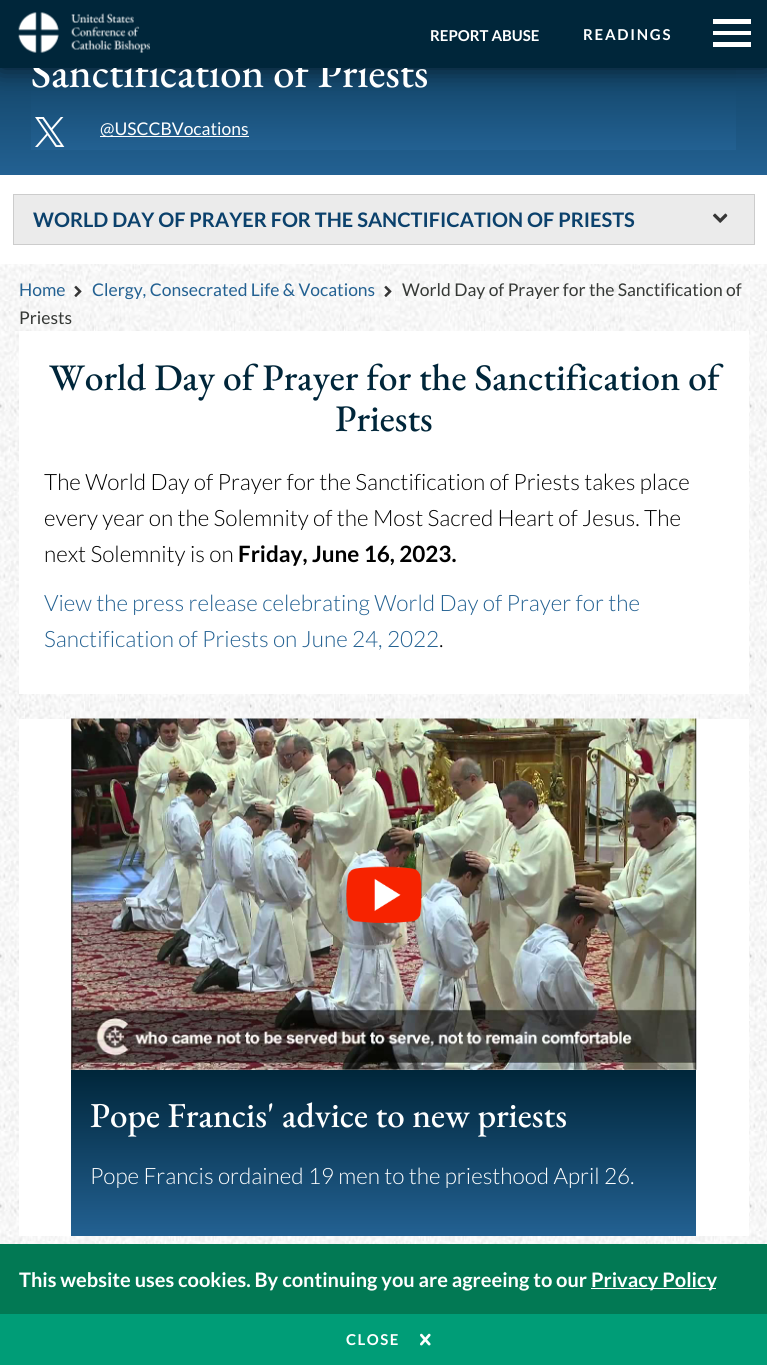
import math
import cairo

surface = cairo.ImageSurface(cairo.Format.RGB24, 767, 1365)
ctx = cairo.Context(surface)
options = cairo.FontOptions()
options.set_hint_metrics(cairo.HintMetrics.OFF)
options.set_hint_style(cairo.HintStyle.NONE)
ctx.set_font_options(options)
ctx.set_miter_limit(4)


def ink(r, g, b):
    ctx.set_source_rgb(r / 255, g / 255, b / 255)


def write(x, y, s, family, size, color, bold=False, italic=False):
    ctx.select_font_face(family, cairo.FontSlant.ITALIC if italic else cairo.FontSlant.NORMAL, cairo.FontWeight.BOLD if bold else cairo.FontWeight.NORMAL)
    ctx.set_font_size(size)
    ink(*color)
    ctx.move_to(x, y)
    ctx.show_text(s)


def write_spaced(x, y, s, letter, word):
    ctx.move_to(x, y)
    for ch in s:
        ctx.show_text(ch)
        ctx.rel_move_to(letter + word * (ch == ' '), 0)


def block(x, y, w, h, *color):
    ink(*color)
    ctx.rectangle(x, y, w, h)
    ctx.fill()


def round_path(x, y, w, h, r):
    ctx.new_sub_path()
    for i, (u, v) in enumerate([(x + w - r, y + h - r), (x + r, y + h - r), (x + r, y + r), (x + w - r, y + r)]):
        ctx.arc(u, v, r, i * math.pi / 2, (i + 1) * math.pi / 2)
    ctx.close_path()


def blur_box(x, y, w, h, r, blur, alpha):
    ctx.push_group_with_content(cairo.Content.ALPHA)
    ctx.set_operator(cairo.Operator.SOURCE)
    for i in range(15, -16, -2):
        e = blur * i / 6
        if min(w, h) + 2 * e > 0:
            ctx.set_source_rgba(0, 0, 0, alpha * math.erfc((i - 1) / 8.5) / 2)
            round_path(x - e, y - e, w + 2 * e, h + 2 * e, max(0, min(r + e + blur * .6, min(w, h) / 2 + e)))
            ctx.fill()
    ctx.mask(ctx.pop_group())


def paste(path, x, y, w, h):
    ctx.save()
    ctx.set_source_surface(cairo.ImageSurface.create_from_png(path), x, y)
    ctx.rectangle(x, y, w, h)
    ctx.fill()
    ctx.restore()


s1 = dict(family="EB Garamond Medium", size=42.5, color=(255, 255, 255))
s2 = dict(family="Lato", size=15, color=(255, 255, 255), bold=True)
s3 = dict(family="Lato", size=17.5, color=(255, 255, 255))
s4 = dict(family="Lato", size=20, color=(11, 65, 108), bold=True)
s5 = dict(family="Lato", size=17.5, color=(35, 97, 146))
s6 = dict(family="Lato", size=17.5, color=(54, 57, 54))
s7 = dict(family="EB Garamond Medium", size=37.5, color=(0, 38, 58))
s8 = dict(family="Lato Light", size=22.5, color=(0, 0, 0))
s9 = dict(family="Lato", size=22.5, color=(0, 0, 0), bold=True)
s10 = dict(family="Lato Light", size=22.5, color=(35, 97, 146))
s11 = dict(family="EB Garamond Medium", size=35, color=(255, 255, 255))
s12 = dict(family="Lato Light", size=22.5, color=(255, 255, 255))
s13 = dict(family="Lato", size=20, color=(255, 255, 255), bold=True)

ink(255, 255, 255)
ctx.paint()
paste("pic1.png", 0, 264, 767, 980)
gradient = cairo.LinearGradient(384, -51, 384, 175)
gradient.add_color_stop_rgba(0, 0, 0.149, 0.227, 1)
gradient.add_color_stop_rgba(1, 0.137, 0.38, 0.573, 1)
ctx.set_source(gradient)
ctx.rectangle(0, 68, 767, 107)
ctx.fill()
gradient = cairo.LinearGradient(384, -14, 384, 150)
gradient.add_color_stop_rgba(0, 0, 0.149, 0.227, 1)
gradient.add_color_stop_rgba(1, 0.137, 0.38, 0.573, 1)
ctx.set_source(gradient)
ctx.rectangle(31, 68, 705, 82)
ctx.fill()
ink(0, 0, 0)
blur_box(0, 0, 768, 68, 0, 12.5, 0.6)
write(31, 87, "Sanctification of Priests", **s1)
block(0, 0, 767, 68, 0, 38, 58)
paste("pic2.png", 18, 12, 132, 41)
write(430, 41, "REPORT ABUSE", **s2)
write_spaced(583, 40, "READINGS", 1.75, 0)
ctx.save()
ctx.rectangle(713, 13, 38, 41)
ctx.clip()
ctx.new_path()
ctx.move_to(712, 47)
ctx.line_to(754, 47)
ctx.line_to(754, 42)
ctx.line_to(712, 42)
ctx.close_path()
ctx.move_to(712, 35)
ctx.line_to(754, 35)
ctx.line_to(754, 31)
ctx.line_to(712, 31)
ctx.close_path()
ctx.move_to(712, 19)
ctx.line_to(712, 24)
ctx.line_to(754, 24)
ctx.line_to(754, 19)
ctx.close_path()
ctx.fill()
ctx.restore()
paste("pic3.png", 35, 117, 30, 30)
block(100, 136, 149, 1, 255, 255, 255)
write(100, 135, "@USCCBVocations", **s3)
ctx.rectangle(13.5, 194.5, 741, 50)
ink(204, 204, 204)
ctx.set_line_width(1)
ctx.stroke()
block(14, 195, 740, 49, 235, 235, 235)
write(33, 227, "WORLD DAY OF PRAYER FOR THE SANCTIFICATION OF PRIESTS", **s4)
paste("pic4.png", 712, 213, 16, 10)
write(19, 296, "Home", **s5)
paste("pic5.png", 384, 285, 8, 12)
write(402, 296, "World Day of Prayer for the Sanctification of", **s6)
write(19, 324, "Priests", **s6)
paste("pic6.png", 74, 285, 8, 12)
write(92, 296, "Clergy, Consecrated Life & Vocations", **s5)
paste("pic7.png", 0, 331, 767, 363)
block(19, 331, 730, 363, 255, 255, 255)
write(49, 390, "World Day of Prayer for the Sanctification of", **s7)
write(335, 431, "Priests", **s7)
write(44, 490, "The World Day of Prayer for the Sanctification of Priests takes place", **s8)
write(44, 526, "every year on the Solemnity of the Most Sacred Heart of Jesus. The", **s8)
write(44, 562, "next Solemnity is on", **s8)
write(238, 562, "Friday, June 16, 2023.", **s9)
write(44, 611, "View the press release celebrating World Day of Prayer for the", **s10)
write(44, 647, "Sanctification of Priests on June 24, 2022", **s10)
write(439, 647, ".", **s8)
block(19, 719, 730, 517, 255, 255, 255)
paste("pic8.png", 71, 718, 626, 352)
paste("pic9.png", 346, 866, 76, 57)
gradient = cairo.LinearGradient(384, 1070, 384, 1236)
gradient.add_color_stop_rgba(0, 0, 0.149, 0.227, 1)
gradient.add_color_stop_rgba(1, 0.137, 0.38, 0.573, 1)
ctx.set_source(gradient)
ctx.rectangle(71, 1070, 625, 166)
ctx.fill()
write(90, 1127, "Pope Francis' advice to new priests", **s11)
write(90, 1184, "Pope Francis ordained 19 men to the priesthood April 26.", **s12)
block(0, 1314, 767, 51, 0, 157, 119)
block(0, 1244, 767, 70, 2, 121, 84)
write(19, 1287, "This website uses cookies. By continuing you are agreeing to our", **s13)
block(591, 1288, 125, 1, 255, 255, 255)
write(591, 1287, "Privacy Policy", **s13)
ctx.set_font_size(15)
write_spaced(346, 1345, "CLOSE", 1.5, 0)
paste("pic10.png", 420, 1333, 11, 13)
surface.write_to_png("screenshot.png")
